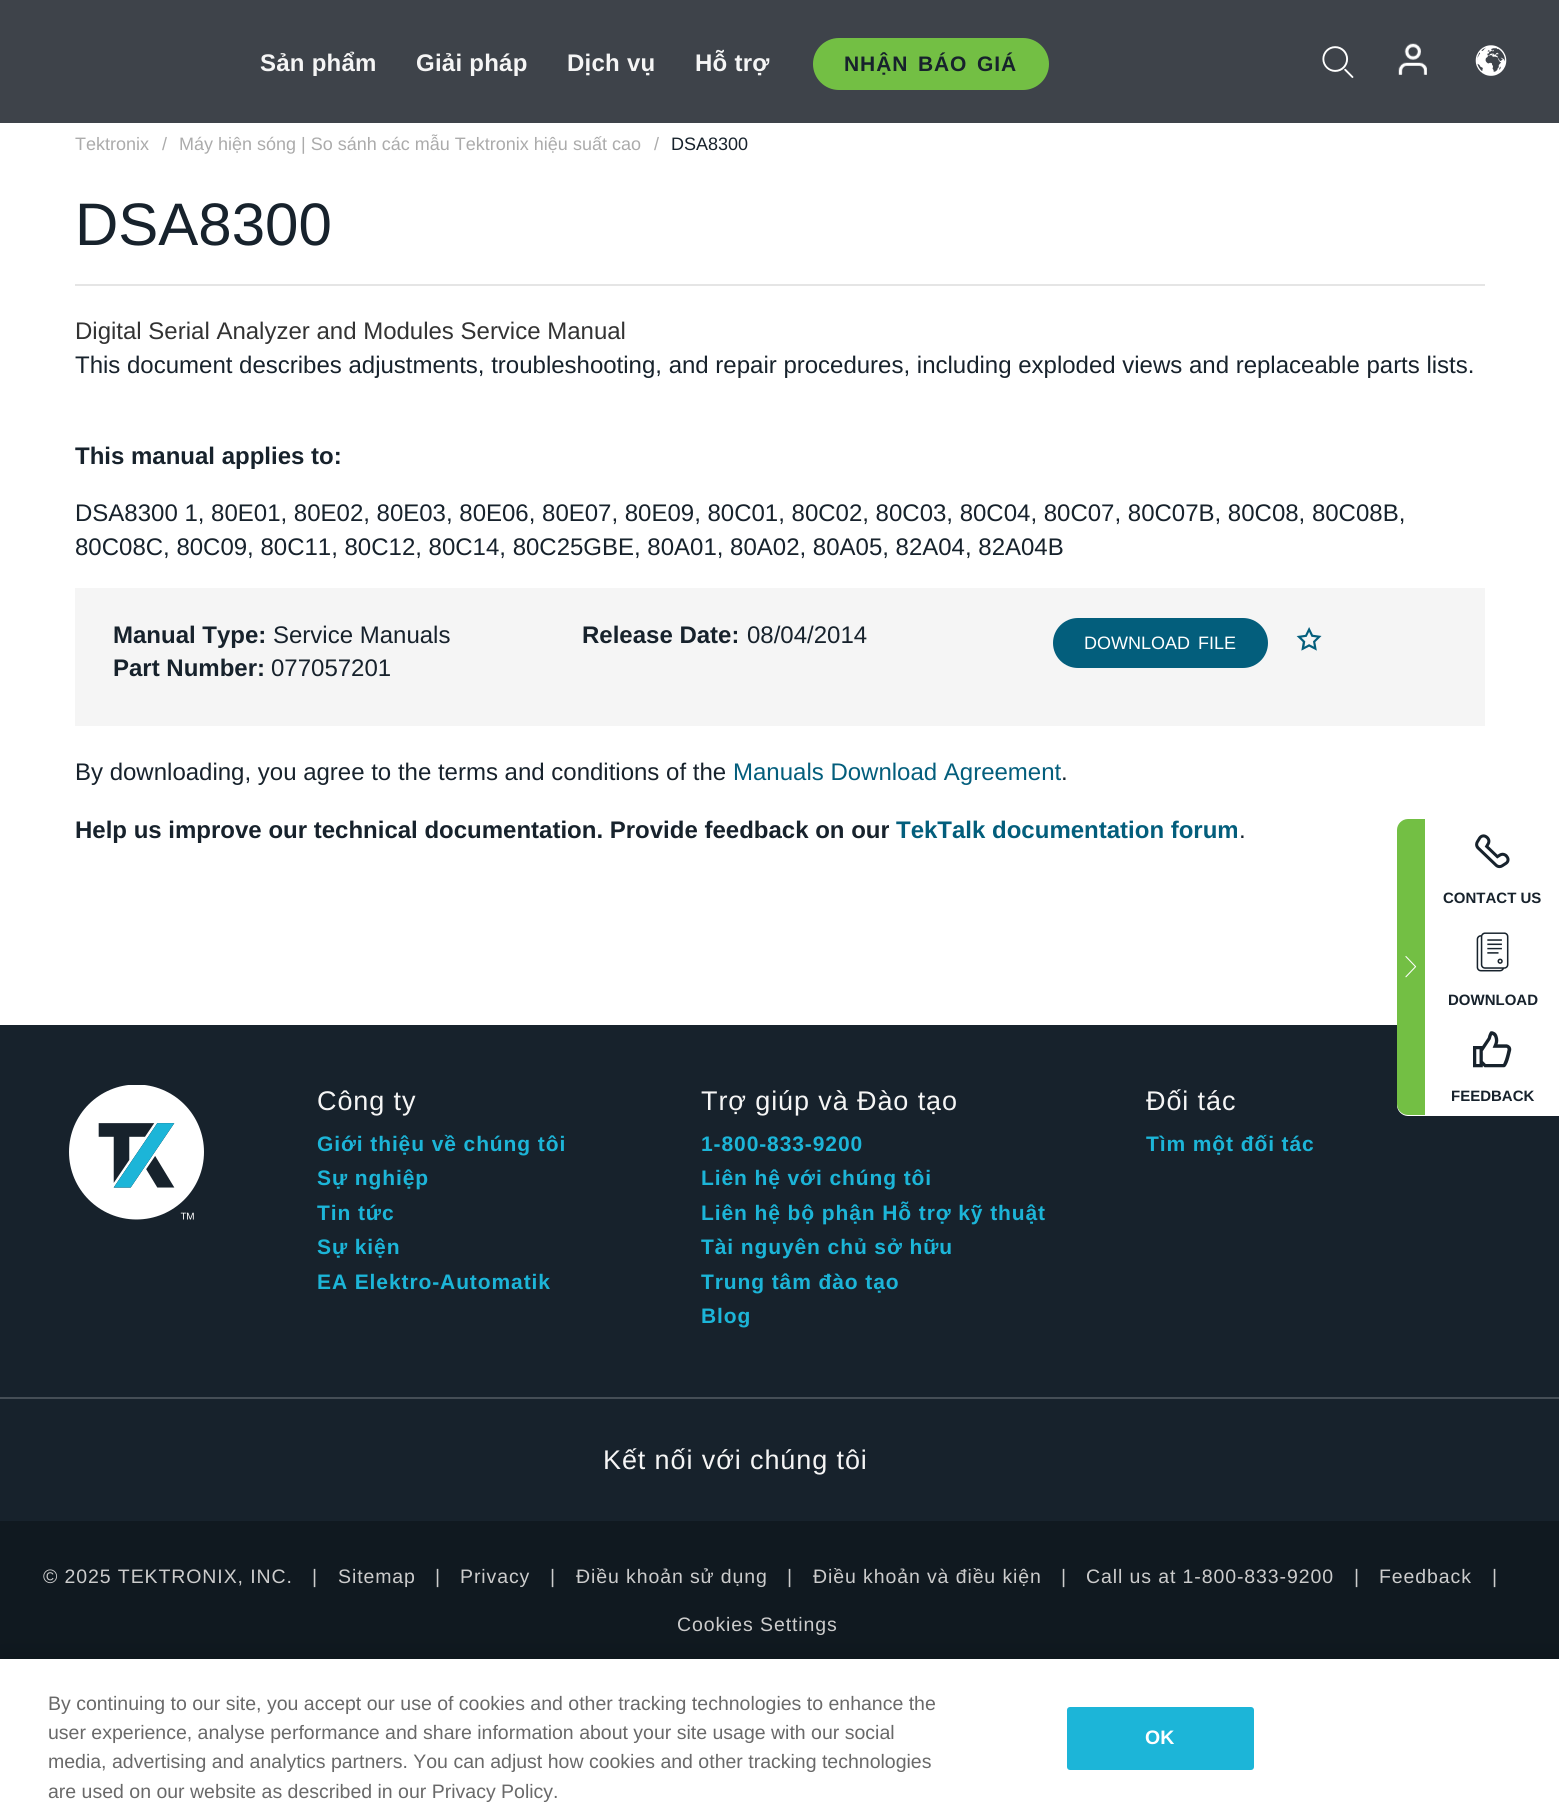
import math
import cairo

surface = cairo.ImageSurface(cairo.Format.RGB24, 1559, 1820)
ctx = cairo.Context(surface)
options = cairo.FontOptions()
options.set_hint_metrics(cairo.HintMetrics.OFF)
options.set_hint_style(cairo.HintStyle.NONE)
ctx.set_font_options(options)
ctx.set_miter_limit(4)


def ink(r, g, b):
    ctx.set_source_rgb(r / 255, g / 255, b / 255)


def write(x, y, s, family, size, color, bold=False, italic=False):
    ctx.select_font_face(family, cairo.FontSlant.ITALIC if italic else cairo.FontSlant.NORMAL, cairo.FontWeight.BOLD if bold else cairo.FontWeight.NORMAL)
    ctx.set_font_size(size)
    ink(*color)
    ctx.move_to(x, y)
    ctx.show_text(s)


def write_spaced(x, y, s, letter, word):
    ctx.move_to(x, y)
    for ch in s:
        ctx.show_text(ch)
        ctx.rel_move_to(letter + word * (ch == ' '), 0)


def block(x, y, w, h, *color):
    ink(*color)
    ctx.rectangle(x, y, w, h)
    ctx.fill()


def round_path(x, y, w, h, r):
    ctx.new_sub_path()
    for i, (u, v) in enumerate([(x + w - r, y + h - r), (x + r, y + h - r), (x + r, y + r), (x + w - r, y + r)]):
        ctx.arc(u, v, r, i * math.pi / 2, (i + 1) * math.pi / 2)
    ctx.close_path()


def blur_box(x, y, w, h, r, blur, alpha):
    ctx.push_group_with_content(cairo.Content.ALPHA)
    ctx.set_operator(cairo.Operator.SOURCE)
    for i in range(15, -16, -2):
        e = blur * i / 6
        if min(w, h) + 2 * e > 0:
            ctx.set_source_rgba(0, 0, 0, alpha * math.erfc((i - 1) / 8.5) / 2)
            round_path(x - e, y - e, w + 2 * e, h + 2 * e, max(0, min(r + e + blur * .6, min(w, h) / 2 + e)))
            ctx.fill()
    ctx.mask(ctx.pop_group())


def paste(path, x, y, w, h):
    ctx.save()
    ctx.set_source_surface(cairo.ImageSurface.create_from_png(path), x, y)
    ctx.rectangle(x, y, w, h)
    ctx.fill()
    ctx.restore()


s1 = dict(family="Liberation Sans", size=18, color=(171, 171, 171))
s2 = dict(family="Liberation Sans", size=18, color=(23, 34, 44))
s3 = dict(family="Liberation Sans", size=60, color=(23, 34, 44))
s4 = dict(family="Liberation Sans", size=24, color=(51, 51, 51))
s5 = dict(family="Liberation Sans", size=24, color=(23, 34, 44))
s6 = dict(family="Liberation Sans", size=24, color=(23, 34, 44), bold=True)
s7 = dict(family="Liberation Sans", size=24, color=(3, 94, 124))
s8 = dict(family="Liberation Sans", size=24, color=(3, 94, 124), bold=True)
s9 = dict(family="Liberation Sans", size=15, color=(23, 34, 44), bold=True)
s10 = dict(family="Liberation Sans", size=19.5, color=(105, 105, 105))
s11 = dict(family="Liberation Sans", size=19.5, color=(255, 255, 255), bold=True)

ink(255, 255, 255)
ctx.paint()
block(0, 0, 1559, 123, 62, 67, 74)
ctx.select_font_face("Liberation Sans", cairo.FontSlant.NORMAL, cairo.FontWeight.BOLD)
ctx.set_font_size(24)
ink(245, 245, 245)
write_spaced(260, 71, "Sản phẩm", 0.25, 0)
write_spaced(416, 71, "Giải pháp", 0.25, 0)
write_spaced(567, 71, "Dịch vụ", 0.25, 0)
write_spaced(695, 71, "Hỗ trợ", 0.25, 0)
ink(115, 191, 68)
round_path(813, 38, 236, 52, 26)
ctx.fill()
ctx.set_font_size(21)
ink(23, 34, 44)
write_spaced(844, 71, "NHẬN BÁO GIÁ", 0.9, 3)
paste("pic1.png", 1322, 46, 32, 32)
paste("pic2.png", 1398, 43, 29, 32)
paste("pic3.png", 1475, 45, 32, 31)
write(75, 150, "Tektronix", **s1)
write(162, 150, "/", **s1)
write(179, 150, "Máy hiện sóng | So sánh các mẫu Tektronix hiệu suất cao", **s1)
write(654, 150, "/", **s1)
write(671, 150, "DSA8300", **s2)
block(75, 284, 1410, 2, 229, 229, 229)
write(75, 245, "DSA8300", **s3)
write(75, 339, "Digital Serial Analyzer and Modules Service Manual", **s4)
write(75, 373, "This document describes adjustments, troubleshooting, and repair procedures, including exploded views and replaceable parts lists.", **s5)
write(75, 464, "This manual applies to:", **s6)
write(75, 521, "DSA8300 1, 80E01, 80E02, 80E03, 80E06, 80E07, 80E09, 80C01, 80C02, 80C03, 80C04, 80C07, 80C07B, 80C08, 80C08B,", **s5)
write(75, 555, "80C08C, 80C09, 80C11, 80C12, 80C14, 80C25GBE, 80A01, 80A02, 80A05, 82A04, 82A04B", **s5)
block(75, 588, 1410, 138, 245, 245, 245)
write(113, 643, "Manual Type:", **s6)
write(273, 643, "Service Manuals", **s5)
write(113, 676, "Part Number:", **s6)
write(271, 676, "077057201", **s5)
write(582, 643, "Release Date:", **s6)
write(747, 643, "08/04/2014", **s5)
ink(3, 94, 124)
round_path(1053, 618, 215, 50, 25)
ctx.fill()
ctx.set_font_size(18)
ink(255, 255, 255)
write_spaced(1084, 649, "DOWNLOAD FILE", 0, 3)
paste("pic4.png", 1296, 627, 26, 24)
write(75, 780, "By downloading, you agree to the terms and conditions of the", **s5)
write(733, 780, "Manuals Download Agreement", **s7)
write(1061, 780, ".", **s5)
write(75, 838, "Help us improve our technical documentation. Provide feedback on our", **s6)
write(896, 838, "TekTalk documentation forum", **s8)
write(1239, 838, ".", **s5)
block(0, 1025, 1559, 496, 23, 34, 44)
ink(255, 255, 255)
ctx.new_path()
ctx.move_to(1408, 819)
ctx.line_to(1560, 819)
ctx.line_to(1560, 1116)
ctx.line_to(1408, 1116)
ctx.curve_to(1402, 1116, 1397, 1111, 1397, 1105)
ctx.line_to(1397, 830)
ctx.curve_to(1397, 824, 1402, 819, 1408, 819)
ctx.close_path()
ctx.fill()
ink(115, 191, 68)
ctx.new_path()
ctx.move_to(1408, 819)
ctx.line_to(1425, 819)
ctx.line_to(1425, 1115)
ctx.line_to(1408, 1115)
ctx.curve_to(1402, 1115, 1397, 1110, 1397, 1104)
ctx.line_to(1397, 830)
ctx.curve_to(1397, 824, 1402, 819, 1408, 819)
ctx.close_path()
ctx.fill()
paste("pic5.png", 1405, 956, 12, 22)
paste("pic6.png", 1475, 834, 35, 35)
write(1443, 903, "CONTACT US", **s9)
paste("pic7.png", 1476, 932, 33, 40)
write(1448, 1005, "DOWNLOAD", **s9)
paste("pic8.png", 1473, 1031, 39, 37)
write(1451, 1101, "FEEDBACK", **s9)
paste("pic9.png", 69, 1085, 135, 135)
ctx.select_font_face("Liberation Sans")
ctx.set_font_size(27)
ink(245, 245, 245)
write_spaced(317, 1110, "Công ty", 0.9, 0)
ctx.select_font_face("Liberation Sans", cairo.FontSlant.NORMAL, cairo.FontWeight.BOLD)
ctx.set_font_size(21)
ink(28, 181, 216)
write_spaced(317, 1151, "Giới thiệu về chúng tôi", 0.9, 0)
write_spaced(317, 1185, "Sự nghiệp", 0.9, 0)
write_spaced(317, 1220, "Tin tức", 0.9, 0)
write_spaced(317, 1254, "Sự kiện", 0.9, 0)
write_spaced(317, 1289, "EA Elektro-Automatik", 0.9, 0)
ctx.select_font_face("Liberation Sans")
ctx.set_font_size(27)
ink(245, 245, 245)
write_spaced(701, 1110, "Trợ giúp và Đào tạo", 0.9, 0)
ctx.select_font_face("Liberation Sans", cairo.FontSlant.NORMAL, cairo.FontWeight.BOLD)
ctx.set_font_size(21)
ink(28, 181, 216)
write_spaced(701, 1151, "1-800-833-9200", 0.9, 0)
write_spaced(701, 1185, "Liên hệ với chúng tôi", 0.9, 0)
write_spaced(701, 1220, "Liên hệ bộ phận Hỗ trợ kỹ thuật", 0.9, 0)
write_spaced(701, 1254, "Tài nguyên chủ sở hữu", 0.9, 0)
write_spaced(701, 1289, "Trung tâm đào tạo", 0.9, 0)
write_spaced(701, 1323, "Blog", 0.9, 0)
ctx.select_font_face("Liberation Sans")
ctx.set_font_size(27)
ink(245, 245, 245)
write_spaced(1146, 1110, "Đối tác", 0.9, 0)
ctx.select_font_face("Liberation Sans", cairo.FontSlant.NORMAL, cairo.FontWeight.BOLD)
ctx.set_font_size(21)
ink(28, 181, 216)
write_spaced(1146, 1151, "Tìm một đối tác", 0.9, 0)
block(0, 1397, 1559, 2, 69, 78, 86)
ctx.select_font_face("Liberation Sans")
ctx.set_font_size(27)
ink(245, 245, 245)
write_spaced(603, 1469, "Kết nối với chúng tôi", 0.9, 0)
block(0, 1521, 1559, 138, 16, 25, 32)
ctx.set_font_size(19.5)
ink(204, 204, 204)
write_spaced(43, 1583, "© 2025 TEKTRONIX, INC.", 0.9, 0)
write_spaced(312, 1583, "|", 0.9, 0)
write_spaced(338, 1583, "Sitemap", 0.9, 0)
write_spaced(435, 1583, "|", 0.9, 0)
write_spaced(460, 1583, "Privacy", 0.9, 0)
write_spaced(550, 1583, "|", 0.9, 0)
write_spaced(576, 1583, "Điều khoản sử dụng", 0.9, 0)
write_spaced(787, 1583, "|", 0.9, 0)
write_spaced(813, 1583, "Điều khoản và điều kiện", 0.9, 0)
write_spaced(1061, 1583, "|", 0.9, 0)
write_spaced(1086, 1583, "Call us at 1-800-833-9200", 0.9, 0)
write_spaced(1354, 1583, "|", 0.9, 0)
write_spaced(1379, 1583, "Feedback", 0.9, 0)
write_spaced(1492, 1583, "|", 0.9, 0)
write_spaced(677, 1631, "Cookies Settings", 0.9, 0)
ink(0, 0, 0)
blur_box(0, 1659, 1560, 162, 0, 13.5, 0.2)
block(0, 1659, 1559, 161, 255, 255, 255)
write(48, 1710, "By continuing to our site, you accept our use of cookies and other tracking technologies to enhance the", **s10)
write(48, 1739, "user experience, analyse performance and share information about your site usage with our social", **s10)
write(48, 1768, "media, advertising and analytics partners. You can adjust how cookies and other tracking technologies", **s10)
write(48, 1798, "are used on our website as described in our Privacy Policy.", **s10)
ink(28, 181, 216)
round_path(1068, 1708, 185, 61, 2)
ctx.fill_preserve()
ctx.stroke()
write(1145, 1744, "OK", **s11)
surface.write_to_png("screenshot.png")
